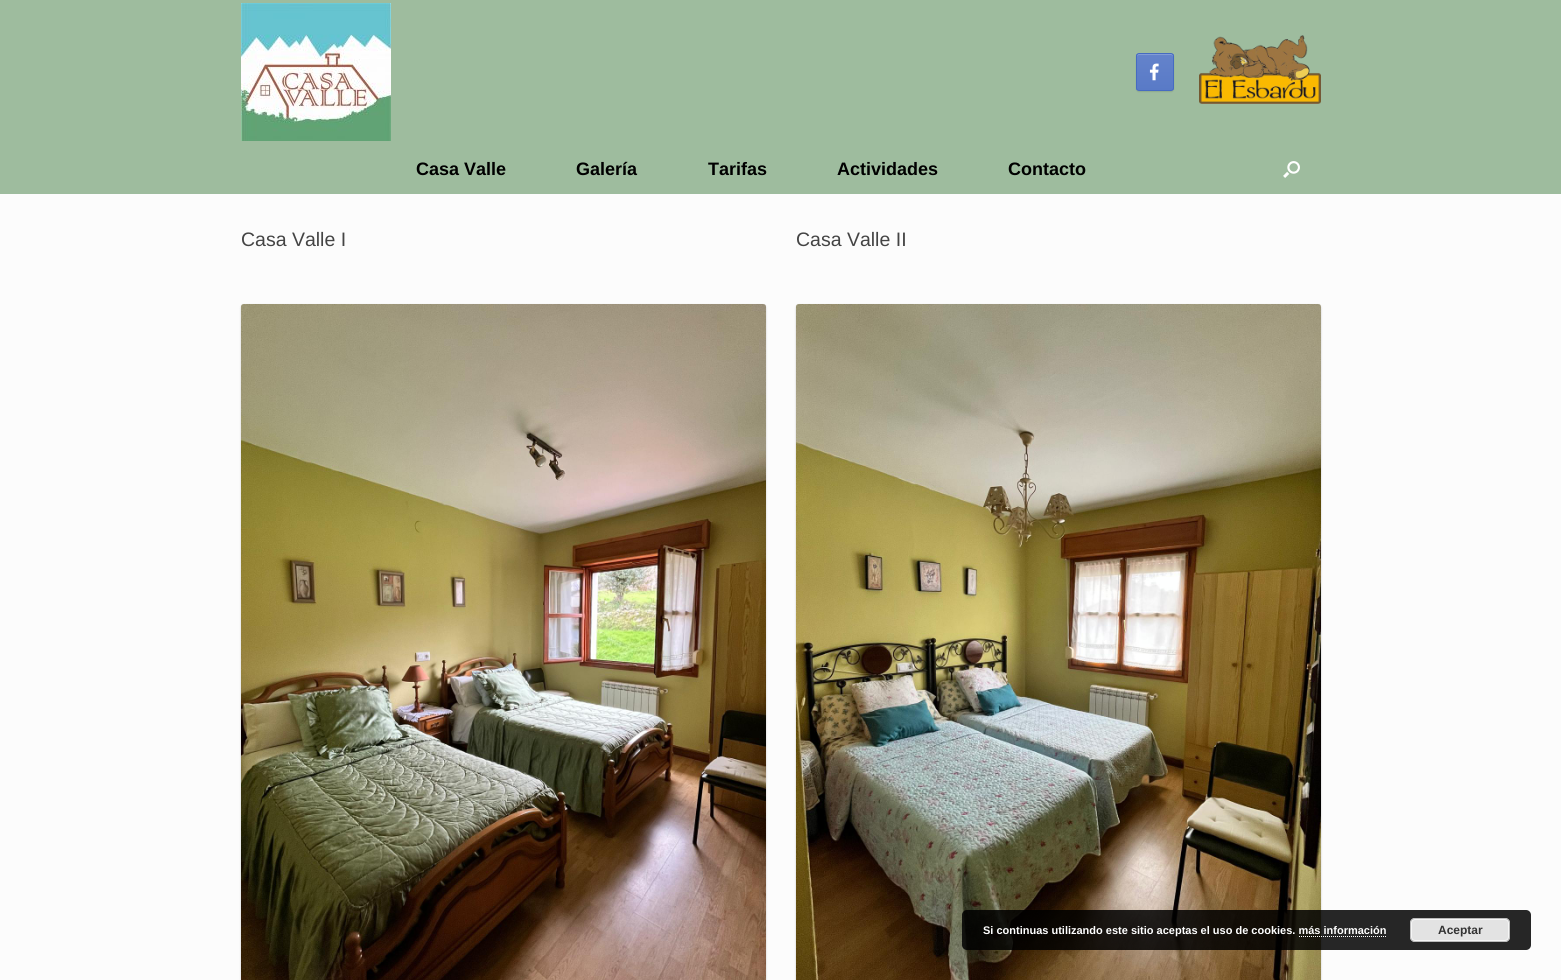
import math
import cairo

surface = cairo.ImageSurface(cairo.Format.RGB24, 1561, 980)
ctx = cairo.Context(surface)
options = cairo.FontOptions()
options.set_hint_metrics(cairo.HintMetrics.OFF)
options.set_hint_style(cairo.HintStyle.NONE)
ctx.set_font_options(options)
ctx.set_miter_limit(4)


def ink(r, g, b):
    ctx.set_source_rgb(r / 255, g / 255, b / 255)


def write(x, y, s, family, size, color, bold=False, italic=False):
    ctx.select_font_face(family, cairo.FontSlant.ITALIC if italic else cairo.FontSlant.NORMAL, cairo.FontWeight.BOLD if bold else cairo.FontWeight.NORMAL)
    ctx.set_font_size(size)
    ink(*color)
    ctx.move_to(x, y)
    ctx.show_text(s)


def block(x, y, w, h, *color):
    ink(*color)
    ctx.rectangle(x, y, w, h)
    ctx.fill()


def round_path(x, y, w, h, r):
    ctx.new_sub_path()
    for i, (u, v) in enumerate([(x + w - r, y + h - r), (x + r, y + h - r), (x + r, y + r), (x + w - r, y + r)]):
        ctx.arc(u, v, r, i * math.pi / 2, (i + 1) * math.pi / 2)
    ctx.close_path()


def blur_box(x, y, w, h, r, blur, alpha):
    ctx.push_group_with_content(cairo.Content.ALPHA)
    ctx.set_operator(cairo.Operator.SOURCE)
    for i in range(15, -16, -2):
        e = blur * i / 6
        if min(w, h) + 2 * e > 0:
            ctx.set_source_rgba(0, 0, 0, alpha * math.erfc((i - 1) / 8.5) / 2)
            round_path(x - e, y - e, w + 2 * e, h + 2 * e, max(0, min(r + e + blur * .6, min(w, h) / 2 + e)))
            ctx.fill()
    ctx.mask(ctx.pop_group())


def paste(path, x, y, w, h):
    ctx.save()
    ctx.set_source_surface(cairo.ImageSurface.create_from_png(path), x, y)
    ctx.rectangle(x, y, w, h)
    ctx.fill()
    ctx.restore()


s1 = dict(family="Liberation Sans", size=18, color=(0, 0, 0), bold=True)
s2 = dict(family="Liberation Sans", size=19.5, color=(68, 68, 68))
s3 = dict(family="Liberation Sans", size=11, color=(255, 255, 255), bold=True)
s4 = dict(family="Liberation Sans", size=12, color=(51, 51, 51), bold=True)

ink(158, 188, 158)
ctx.paint()
paste("pic1.png", 241, 3, 150, 138)
ink(0, 0, 0)
blur_box(1136, 54, 38, 38, 3, 0.5, 0.1)
ctx.save()
round_path(1136, 53, 38, 38, 3)
ctx.clip()
gradient = cairo.LinearGradient(1137, 90, 1137, 54)
gradient.add_color_stop_rgba(0, 0.349, 0.478, 0.78, 1)
gradient.add_color_stop_rgba(1, 0.392, 0.514, 0.796, 1)
ctx.set_source(gradient)
ctx.rectangle(1136, 54, 38, 36)
ctx.fill()
ctx.restore()
ink(131, 156, 213)
ctx.new_path()
ctx.move_to(1139, 55)
ctx.line_to(1171, 55)
ctx.curve_to(1172, 55, 1173, 56, 1173, 57)
ctx.curve_to(1173, 52.5, 1169.5, 54, 1165.5, 54)
ctx.line_to(1144.5, 54)
ctx.curve_to(1140.5, 54, 1137, 52.5, 1137, 57)
ctx.curve_to(1137, 56, 1138, 55, 1139, 55)
ctx.close_path()
ctx.fill()
round_path(1136.5, 53.5, 37, 37, 2.5)
ink(70, 107, 193)
ctx.set_line_width(1)
ctx.stroke()
paste("pic2.png", 1149, 63, 10, 18)
paste("pic3.png", 1199, 35, 122, 69)
write(416, 175, "Casa Valle", **s1)
write(576, 175, "Galería", **s1)
write(708, 175, "Tarifas", **s1)
write(837, 175, "Actividades", **s1)
write(1008, 175, "Contacto", **s1)
paste("pic4.png", 1283, 161, 17, 17)
block(0, 194, 1561, 786, 252, 252, 252)
write(241, 246, "Casa Valle I", **s2)
ink(0, 0, 0)
blur_box(241, 305, 525, 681, 3, 1, 0.18)
paste("pic5.png", 241, 304, 525, 676)
write(796, 246, "Casa Valle II", **s2)
ink(0, 0, 0)
blur_box(796, 305, 525, 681, 3, 1, 0.18)
paste("pic6.png", 796, 304, 525, 676)
ctx.set_source_rgba(0, 0, 0, 0.85)
round_path(962, 910, 569, 40, 5)
ctx.fill()
write(983, 934, "Si continuas utilizando este sitio aceptas el uso de cookies. más información", **s3)
ink(227, 227, 227)
round_path(1410, 918, 100, 24, 5)
ctx.fill()
round_path(1411.5, 919.5, 97, 21, 3.5)
ink(246, 246, 246)
ctx.stroke()
round_path(1410.5, 918.5, 99, 23, 4.5)
ink(187, 187, 187)
ctx.stroke()
write(1438, 934, "Aceptar", **s4)
ctx.new_path()
ctx.move_to(1299, 936.5)
ctx.line_to(1387, 936.5)
ink(255, 255, 255)
ctx.set_dash([1, 1])
ctx.stroke()
surface.write_to_png("screenshot.png")
